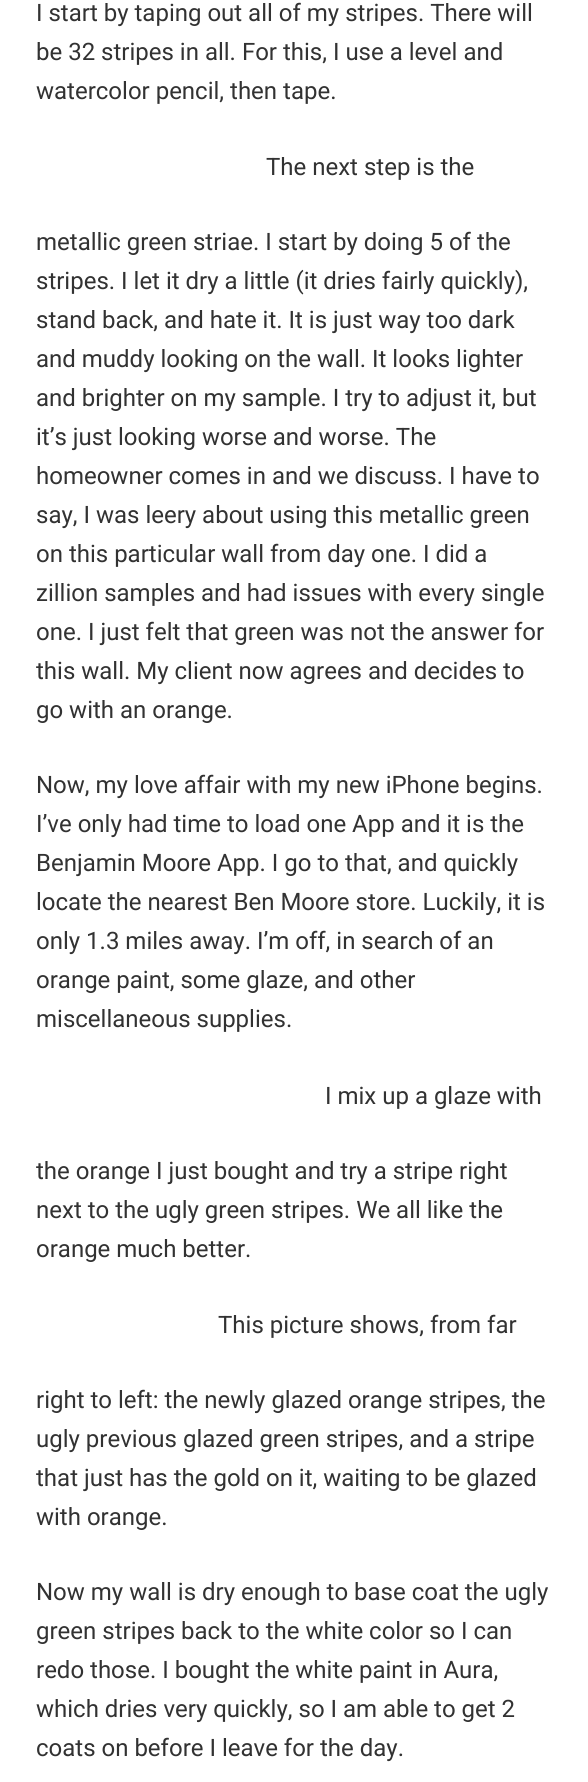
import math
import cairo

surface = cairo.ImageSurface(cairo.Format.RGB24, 588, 1782)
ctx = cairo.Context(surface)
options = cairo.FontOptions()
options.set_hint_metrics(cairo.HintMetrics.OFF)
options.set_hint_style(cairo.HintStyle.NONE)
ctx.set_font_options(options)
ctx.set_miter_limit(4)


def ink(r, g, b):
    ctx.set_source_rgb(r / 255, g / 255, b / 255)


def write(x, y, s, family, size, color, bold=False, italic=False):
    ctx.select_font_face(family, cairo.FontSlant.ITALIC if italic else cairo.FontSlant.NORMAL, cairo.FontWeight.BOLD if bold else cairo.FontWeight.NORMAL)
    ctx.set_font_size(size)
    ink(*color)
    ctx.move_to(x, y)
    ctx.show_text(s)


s1 = dict(family="Roboto", size=24, color=(50, 50, 50))

ink(255, 255, 255)
ctx.paint()
write(36, 21, "I start by taping out all of my stripes. There will", **s1)
write(36, 60, "be 32 stripes in all. For this, I use a level and", **s1)
write(36, 99, "watercolor pencil, then tape.", **s1)
write(266, 175, "The next step is the", **s1)
write(36, 250, "metallic green striae. I start by doing 5 of the", **s1)
write(36, 289, "stripes. I let it dry a little (it dries fairly quickly),", **s1)
write(36, 328, "stand back, and hate it. It is just way too dark", **s1)
write(36, 367, "and muddy looking on the wall. It looks lighter", **s1)
write(36, 406, "and brighter on my sample. I try to adjust it, but", **s1)
write(36, 445, "it’s just looking worse and worse. The", **s1)
write(36, 484, "homeowner comes in and we discuss. I have to", **s1)
write(36, 523, "say, I was leery about using this metallic green", **s1)
write(36, 562, "on this particular wall from day one. I did a", **s1)
write(36, 601, "zillion samples and had issues with every single", **s1)
write(36, 640, "one. I just felt that green was not the answer for", **s1)
write(36, 679, "this wall. My client now agrees and decides to", **s1)
write(36, 718, "go with an orange.", **s1)
write(36, 793, "Now, my love affair with my new iPhone begins.", **s1)
write(36, 832, "I’ve only had time to load one App and it is the", **s1)
write(36, 871, "Benjamin Moore App. I go to that, and quickly", **s1)
write(36, 910, "locate the nearest Ben Moore store. Luckily, it is", **s1)
write(36, 949, "only 1.3 miles away. I’m off, in search of an", **s1)
write(36, 988, "orange paint, some glaze, and other", **s1)
write(36, 1027, "miscellaneous supplies.", **s1)
write(325, 1104, "I mix up a glaze with", **s1)
write(36, 1179, "the orange I just bought and try a stripe right", **s1)
write(36, 1218, "next to the ugly green stripes. We all like the", **s1)
write(36, 1257, "orange much better.", **s1)
write(218, 1333, "This picture shows, from far", **s1)
write(36, 1408, "right to left: the newly glazed orange stripes, the", **s1)
write(36, 1447, "ugly previous glazed green stripes, and a stripe", **s1)
write(36, 1486, "that just has the gold on it, waiting to be glazed", **s1)
write(36, 1525, "with orange.", **s1)
write(36, 1600, "Now my wall is dry enough to base coat the ugly", **s1)
write(36, 1639, "green stripes back to the white color so I can", **s1)
write(36, 1678, "redo those. I bought the white paint in Aura,", **s1)
write(36, 1717, "which dries very quickly, so I am able to get 2", **s1)
write(36, 1756, "coats on before I leave for the day.", **s1)
surface.write_to_png("screenshot.png")
